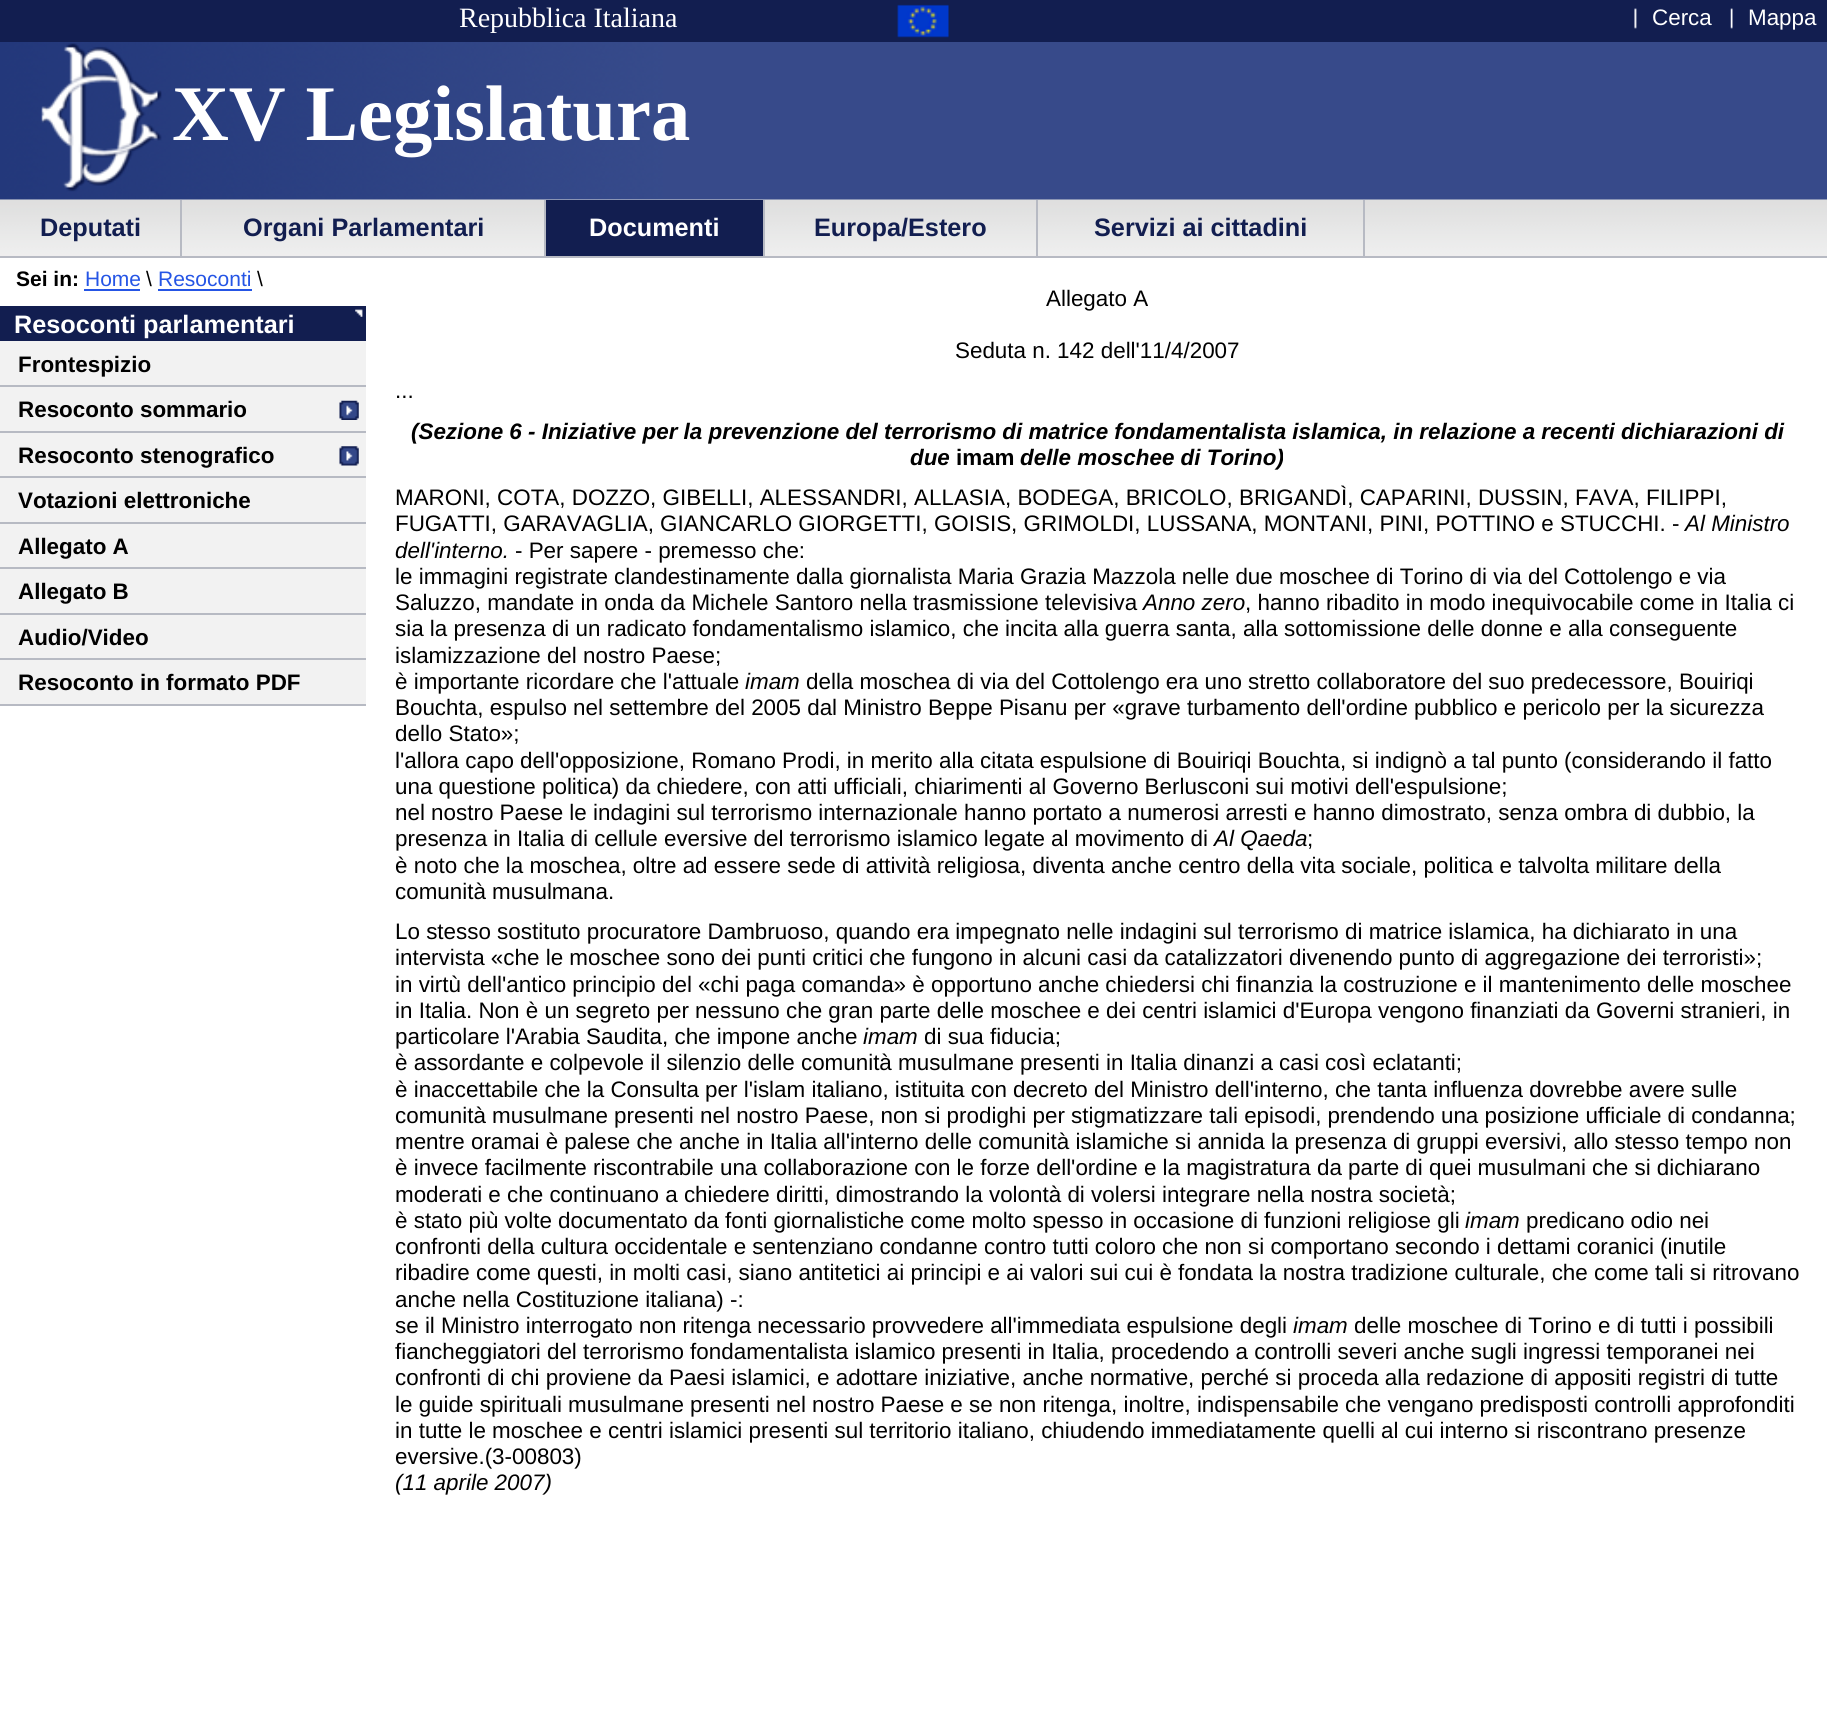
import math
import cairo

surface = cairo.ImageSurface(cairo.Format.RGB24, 1827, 1728)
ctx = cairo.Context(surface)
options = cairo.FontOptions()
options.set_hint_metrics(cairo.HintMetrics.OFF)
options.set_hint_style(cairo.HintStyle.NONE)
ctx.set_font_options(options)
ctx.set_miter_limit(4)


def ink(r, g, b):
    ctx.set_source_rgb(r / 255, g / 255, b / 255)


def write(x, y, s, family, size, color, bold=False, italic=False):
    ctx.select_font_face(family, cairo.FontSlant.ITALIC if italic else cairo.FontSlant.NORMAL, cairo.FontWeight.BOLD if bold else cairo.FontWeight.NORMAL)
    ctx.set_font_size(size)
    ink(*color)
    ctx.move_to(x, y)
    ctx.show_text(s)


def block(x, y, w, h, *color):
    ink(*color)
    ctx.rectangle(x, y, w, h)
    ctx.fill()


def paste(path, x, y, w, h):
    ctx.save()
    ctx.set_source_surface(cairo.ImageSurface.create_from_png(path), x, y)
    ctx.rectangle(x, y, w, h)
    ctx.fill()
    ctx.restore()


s1 = dict(family="Liberation Serif", size=28, color=(255, 255, 255))
s2 = dict(family="Liberation Sans", size=22.4, color=(255, 255, 255))
s3 = dict(family="Liberation Serif", size=78.75, color=(255, 255, 255), bold=True)
s4 = dict(family="Liberation Sans", size=25.25, color=(18, 30, 80), bold=True)
s5 = dict(family="Liberation Sans", size=25.25, color=(255, 255, 255), bold=True)
s6 = dict(family="Liberation Sans", size=21, color=(0, 0, 0), bold=True)
s7 = dict(family="Liberation Sans", size=21, color=(37, 85, 229))
s8 = dict(family="Liberation Sans", size=21, color=(0, 0, 0))
s9 = dict(family="Liberation Sans", size=22.4, color=(0, 0, 0))
s10 = dict(family="Liberation Sans", size=22.4, color=(0, 0, 0), bold=True, italic=True)
s11 = dict(family="Liberation Sans", size=22.4, color=(0, 0, 0), bold=True)
s12 = dict(family="Liberation Sans", size=22.4, color=(0, 0, 0), italic=True)

ink(255, 255, 255)
ctx.paint()
block(0, 42, 1827, 158, 55, 74, 138)
paste("pic1.png", 0, 42, 664, 158)
block(0, 0, 1827, 42, 18, 30, 80)
write(459, 27, "Repubblica Italiana", **s1)
paste("pic2.png", 897, 4, 52, 34)
paste("pic3.png", 1634, 8, 3, 21)
write(1652, 25, "Cerca", **s2)
paste("pic4.png", 1730, 8, 3, 21)
write(1748, 25, "Mappa", **s2)
paste("pic5.png", 41, 43, 121, 149)
write(172, 140, "XV Legislatura", **s3)
paste("pic6.png", 0, 199, 1827, 57)
block(0, 256, 1827, 2, 183, 186, 195)
block(180, 200, 2, 56, 183, 186, 195)
write(40, 236, "Deputati", **s4)
block(544, 200, 2, 56, 183, 186, 195)
write(243, 236, "Organi Parlamentari", **s4)
block(546, 200, 217, 56, 18, 30, 80)
block(763, 200, 2, 56, 183, 186, 195)
write(589, 236, "Documenti", **s5)
block(1036, 200, 2, 56, 183, 186, 195)
write(814, 236, "Europa/Estero", **s4)
block(1363, 200, 2, 56, 183, 186, 195)
write(1094, 236, "Servizi ai cittadini", **s4)
write(16, 286, "Sei in:", **s6)
write(85, 286, "Home", **s7)
block(84, 289, 56, 2, 37, 85, 229)
write(146, 286, "\\", **s8)
write(158, 286, "Resoconti", **s7)
block(158, 289, 94, 2, 37, 85, 229)
write(257, 286, "\\", **s8)
write(1046, 306, "Allegato A", **s9)
write(955, 358, "Seduta n. 142 dell'11/4/2007", **s9)
write(395, 398, "...", **s9)
write(411, 439, "(Sezione 6 - Iniziative per la prevenzione del terrorismo di matrice fondamentalista islamica, in relazione a recenti dichiarazioni di", **s10)
write(910, 465, "due", **s10)
write(956, 465, "imam", **s11)
write(1020, 465, "delle moschee di Torino)", **s10)
write(395, 505, "MARONI, COTA, DOZZO, GIBELLI, ALESSANDRI, ALLASIA, BODEGA, BRICOLO, BRIGANDÌ, CAPARINI, DUSSIN, FAVA, FILIPPI,", **s9)
write(395, 531, "FUGATTI, GARAVAGLIA, GIANCARLO GIORGETTI, GOISIS, GRIMOLDI, LUSSANA, MONTANI, PINI, POTTINO e STUCCHI. -", **s9)
write(1685, 531, "Al Ministro", **s12)
write(395, 558, "dell'interno.", **s12)
write(515, 558, "- Per sapere - premesso che:", **s9)
write(395, 584, "le immagini registrate clandestinamente dalla giornalista Maria Grazia Mazzola nelle due moschee di Torino di via del Cottolengo e via", **s9)
write(395, 610, "Saluzzo, mandate in onda da Michele Santoro nella trasmissione televisiva", **s9)
write(1143, 610, "Anno zero", **s12)
write(1245, 610, ", hanno ribadito in modo inequivocabile come in Italia ci", **s9)
write(395, 636, "sia la presenza di un radicato fondamentalismo islamico, che incita alla guerra santa, alla sottomissione delle donne e alla conseguente", **s9)
write(395, 663, "islamizzazione del nostro Paese;", **s9)
write(395, 689, "è importante ricordare che l'attuale", **s9)
write(745, 689, "imam", **s12)
write(806, 689, "della moschea di via del Cottolengo era uno stretto collaboratore del suo predecessore, Bouiriqi", **s9)
write(395, 715, "Bouchta, espulso nel settembre del 2005 dal Ministro Beppe Pisanu per «grave turbamento dell'ordine pubblico e pericolo per la sicurezza", **s9)
write(395, 741, "dello Stato»;", **s9)
write(395, 768, "l'allora capo dell'opposizione, Romano Prodi, in merito alla citata espulsione di Bouiriqi Bouchta, si indignò a tal punto (considerando il fatto", **s9)
write(395, 794, "una questione politica) da chiedere, con atti ufficiali, chiarimenti al Governo Berlusconi sui motivi dell'espulsione;", **s9)
write(395, 820, "nel nostro Paese le indagini sul terrorismo internazionale hanno portato a numerosi arresti e hanno dimostrato, senza ombra di dubbio, la", **s9)
write(395, 846, "presenza in Italia di cellule eversive del terrorismo islamico legate al movimento di", **s9)
write(1214, 846, "Al Qaeda", **s12)
write(1307, 846, ";", **s9)
write(395, 873, "è noto che la moschea, oltre ad essere sede di attività religiosa, diventa anche centro della vita sociale, politica e talvolta militare della", **s9)
write(395, 899, "comunità musulmana.", **s9)
write(395, 939, "Lo stesso sostituto procuratore Dambruoso, quando era impegnato nelle indagini sul terrorismo di matrice islamica, ha dichiarato in una", **s9)
write(395, 965, "intervista «che le moschee sono dei punti critici che fungono in alcuni casi da catalizzatori divenendo punto di aggregazione dei terroristi»;", **s9)
write(395, 992, "in virtù dell'antico principio del «chi paga comanda» è opportuno anche chiedersi chi finanzia la costruzione e il mantenimento delle moschee", **s9)
write(395, 1018, "in Italia. Non è un segreto per nessuno che gran parte delle moschee e dei centri islamici d'Europa vengono finanziati da Governi stranieri, in", **s9)
write(395, 1044, "particolare l'Arabia Saudita, che impone anche", **s9)
write(863, 1044, "imam", **s12)
write(924, 1044, "di sua fiducia;", **s9)
write(395, 1070, "è assordante e colpevole il silenzio delle comunità musulmane presenti in Italia dinanzi a casi così eclatanti;", **s9)
write(395, 1097, "è inaccettabile che la Consulta per l'islam italiano, istituita con decreto del Ministro dell'interno, che tanta influenza dovrebbe avere sulle", **s9)
write(395, 1123, "comunità musulmane presenti nel nostro Paese, non si prodighi per stigmatizzare tali episodi, prendendo una posizione ufficiale di condanna;", **s9)
write(395, 1149, "mentre oramai è palese che anche in Italia all'interno delle comunità islamiche si annida la presenza di gruppi eversivi, allo stesso tempo non", **s9)
write(395, 1175, "è invece facilmente riscontrabile una collaborazione con le forze dell'ordine e la magistratura da parte di quei musulmani che si dichiarano", **s9)
write(395, 1202, "moderati e che continuano a chiedere diritti, dimostrando la volontà di volersi integrare nella nostra società;", **s9)
write(395, 1228, "è stato più volte documentato da fonti giornalistiche come molto spesso in occasione di funzioni religiose gli", **s9)
write(1465, 1228, "imam", **s12)
write(1526, 1228, "predicano odio nei", **s9)
write(395, 1254, "confronti della cultura occidentale e sentenziano condanne contro tutti coloro che non si comportano secondo i dettami coranici (inutile", **s9)
write(395, 1280, "ribadire come questi, in molti casi, siano antitetici ai principi e ai valori sui cui è fondata la nostra tradizione culturale, che come tali si ritrovano", **s9)
write(395, 1307, "anche nella Costituzione italiana) -:", **s9)
write(395, 1333, "se il Ministro interrogato non ritenga necessario provvedere all'immediata espulsione degli", **s9)
write(1293, 1333, "imam", **s12)
write(1354, 1333, "delle moschee di Torino e di tutti i possibili", **s9)
write(395, 1359, "fiancheggiatori del terrorismo fondamentalista islamico presenti in Italia, procedendo a controlli severi anche sugli ingressi temporanei nei", **s9)
write(395, 1385, "confronti di chi proviene da Paesi islamici, e adottare iniziative, anche normative, perché si proceda alla redazione di appositi registri di tutte", **s9)
write(395, 1412, "le guide spirituali musulmane presenti nel nostro Paese e se non ritenga, inoltre, indispensabile che vengano predisposti controlli approfonditi", **s9)
write(395, 1438, "in tutte le moschee e centri islamici presenti sul territorio italiano, chiudendo immediatamente quelli al cui interno si riscontrano presenze", **s9)
write(395, 1464, "eversive.(3-00803)", **s9)
write(395, 1490, "(11 aprile 2007)", **s12)
block(0, 341, 366, 363, 242, 242, 242)
block(0, 306, 366, 35, 18, 30, 80)
paste("pic7.png", 355, 309, 8, 8)
write(14, 333, "Resoconti parlamentari", **s5)
block(0, 385, 366, 2, 183, 186, 195)
write(18, 372, "Frontespizio", **s11)
paste("pic8.png", 339, 400, 20, 20)
block(0, 431, 366, 2, 183, 186, 195)
write(18, 417, "Resoconto sommario", **s11)
paste("pic9.png", 339, 446, 20, 20)
block(0, 476, 366, 2, 183, 186, 195)
write(18, 463, "Resoconto stenografico", **s11)
block(0, 522, 366, 2, 183, 186, 195)
write(18, 508, "Votazioni elettroniche", **s11)
block(0, 567, 366, 2, 183, 186, 195)
write(18, 554, "Allegato A", **s11)
block(0, 613, 366, 2, 183, 186, 195)
write(18, 599, "Allegato B", **s11)
block(0, 658, 366, 2, 183, 186, 195)
write(18, 645, "Audio/Video", **s11)
block(0, 704, 366, 2, 183, 186, 195)
write(18, 690, "Resoconto in formato PDF", **s11)
surface.write_to_png("screenshot.png")
